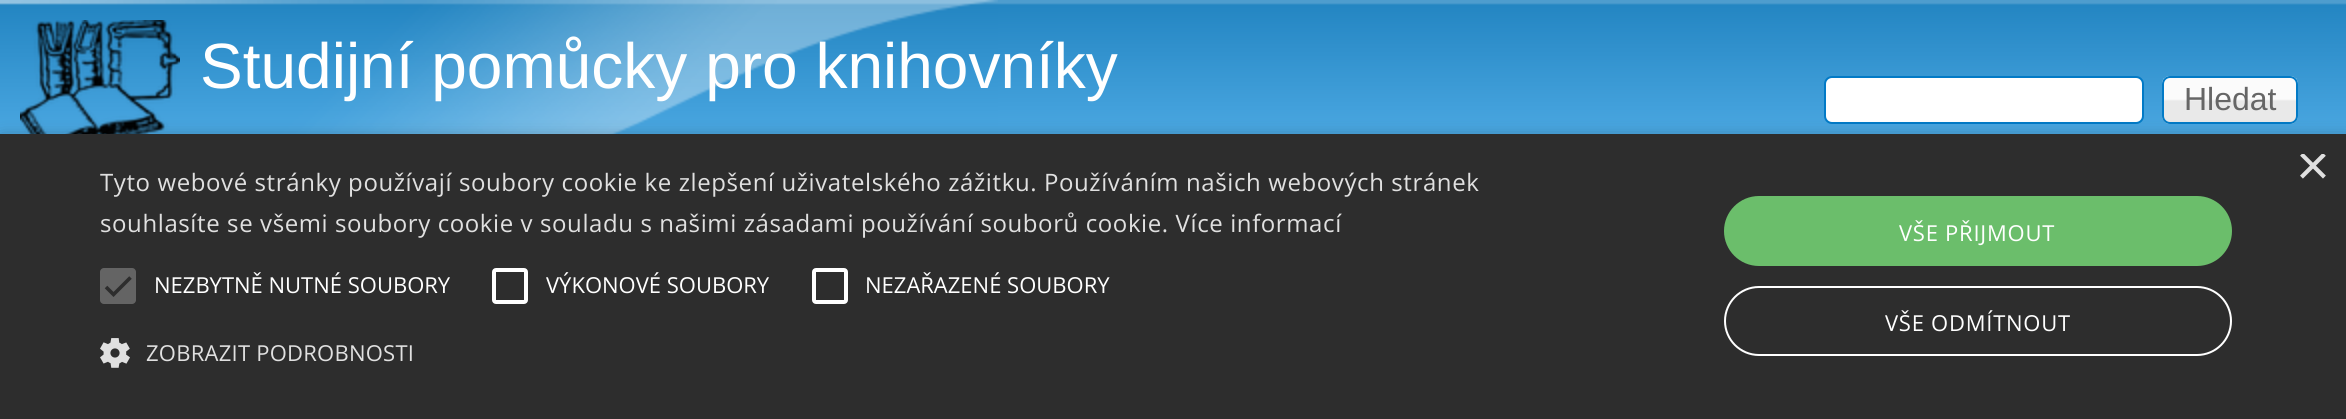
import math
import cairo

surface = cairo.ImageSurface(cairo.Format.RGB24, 2346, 419)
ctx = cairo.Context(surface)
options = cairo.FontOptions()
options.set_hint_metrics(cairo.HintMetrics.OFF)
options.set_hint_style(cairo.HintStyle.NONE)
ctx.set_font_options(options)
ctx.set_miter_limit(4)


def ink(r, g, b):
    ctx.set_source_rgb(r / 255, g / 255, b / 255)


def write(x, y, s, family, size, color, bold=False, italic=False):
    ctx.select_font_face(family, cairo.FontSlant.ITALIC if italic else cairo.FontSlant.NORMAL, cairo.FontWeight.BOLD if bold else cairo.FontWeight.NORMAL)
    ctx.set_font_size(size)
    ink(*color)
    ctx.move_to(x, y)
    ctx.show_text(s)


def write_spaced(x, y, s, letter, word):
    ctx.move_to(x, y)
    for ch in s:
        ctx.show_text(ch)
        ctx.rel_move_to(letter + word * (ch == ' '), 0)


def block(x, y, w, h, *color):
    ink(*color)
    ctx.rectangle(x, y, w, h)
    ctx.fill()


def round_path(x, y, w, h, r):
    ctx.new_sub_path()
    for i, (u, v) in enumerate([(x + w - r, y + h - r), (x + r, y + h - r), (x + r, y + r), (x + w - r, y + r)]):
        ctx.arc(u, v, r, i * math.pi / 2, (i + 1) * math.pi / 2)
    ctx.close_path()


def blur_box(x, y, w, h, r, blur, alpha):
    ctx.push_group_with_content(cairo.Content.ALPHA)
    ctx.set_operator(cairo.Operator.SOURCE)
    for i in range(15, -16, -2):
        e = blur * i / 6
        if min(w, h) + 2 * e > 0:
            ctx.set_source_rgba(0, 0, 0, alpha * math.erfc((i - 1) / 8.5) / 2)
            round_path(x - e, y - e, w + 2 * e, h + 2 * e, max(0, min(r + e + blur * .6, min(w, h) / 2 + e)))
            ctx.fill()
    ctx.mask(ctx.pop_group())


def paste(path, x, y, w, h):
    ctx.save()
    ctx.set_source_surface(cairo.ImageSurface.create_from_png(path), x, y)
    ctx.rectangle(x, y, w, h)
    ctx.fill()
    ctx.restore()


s1 = dict(family="Liberation Sans", size=64, color=(255, 255, 255))
s2 = dict(family="Liberation Sans", size=32, color=(102, 102, 102))
s3 = dict(family="Liberation Sans", size=58, color=(224, 224, 224))
s4 = dict(family="Open Sans", size=22, color=(255, 255, 255))

ink(255, 255, 255)
ctx.paint()
paste("pic1.png", 998, 0, 1348, 134)
paste("pic2.png", 0, 0, 998, 134)
paste("pic3.png", 20, 20, 160, 114)
write(200, 88, "Studijní pomůcky pro knihovníky", **s1)
round_path(1825, 77, 318, 46, 7)
ctx.fill_preserve()
ink(2, 122, 198)
ctx.stroke()
paste("pic4.png", 2162, 76, 136, 48)
round_path(2163, 77, 134, 46, 7)
ctx.stroke()
write(2184, 110, "Hledat", **s2)
ink(0, 0, 0)
blur_box(2, 138, 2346, 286, 0, 8, 0.35)
block(0, 134, 2346, 285, 45, 45, 45)
ctx.save()
ctx.rectangle(2296, 154, 30, 30)
ctx.clip()
write(2296, 185, "×", **s3)
ctx.restore()
ctx.select_font_face("Open Sans")
ctx.set_font_size(24)
ink(224, 224, 224)
write_spaced(100, 191, "Tyto webové stránky používají soubory cookie ke zlepšení uživatelského zážitku. Používáním našich webových stránek", 0.6, 0)
write_spaced(100, 232, "souhlasíte se všemi soubory cookie v souladu s našimi zásadami používání souborů cookie. Více informací", 0.6, 0)
ink(100, 100, 100)
round_path(100, 268, 36, 36, 4)
ctx.fill()
ctx.new_path()
ctx.move_to(106, 287)
ctx.line_to(113.5, 294.5)
ctx.line_to(130.5, 277.5)
ink(45, 45, 45)
ctx.set_line_width(3.6)
ctx.stroke()
write(154, 293, "NEZBYTNĚ NUTNÉ SOUBORY", **s4)
round_path(494, 270, 32, 32, 2)
ctx.set_line_width(4)
ctx.stroke()
write(546, 293, "VÝKONOVÉ SOUBORY", **s4)
round_path(814, 270, 32, 32, 2)
ctx.stroke()
write(865, 293, "NEZAŘAZENÉ SOUBORY", **s4)
paste("pic5.png", 100, 338, 30, 30)
ink(224, 224, 224)
write_spaced(146, 361, "ZOBRAZIT PODROBNOSTI", 0.25, 0)
ink(107, 190, 107)
round_path(1724, 196, 508, 70, 35)
ctx.fill()
ink(255, 255, 255)
write_spaced(1899, 241, "VŠE PŘIJMOUT", 0.75, 0)
round_path(1725, 287, 506, 68, 34)
ctx.set_line_width(2)
ctx.stroke()
write_spaced(1885, 331, "VŠE ODMÍTNOUT", 0.75, 0)
surface.write_to_png("screenshot.png")
